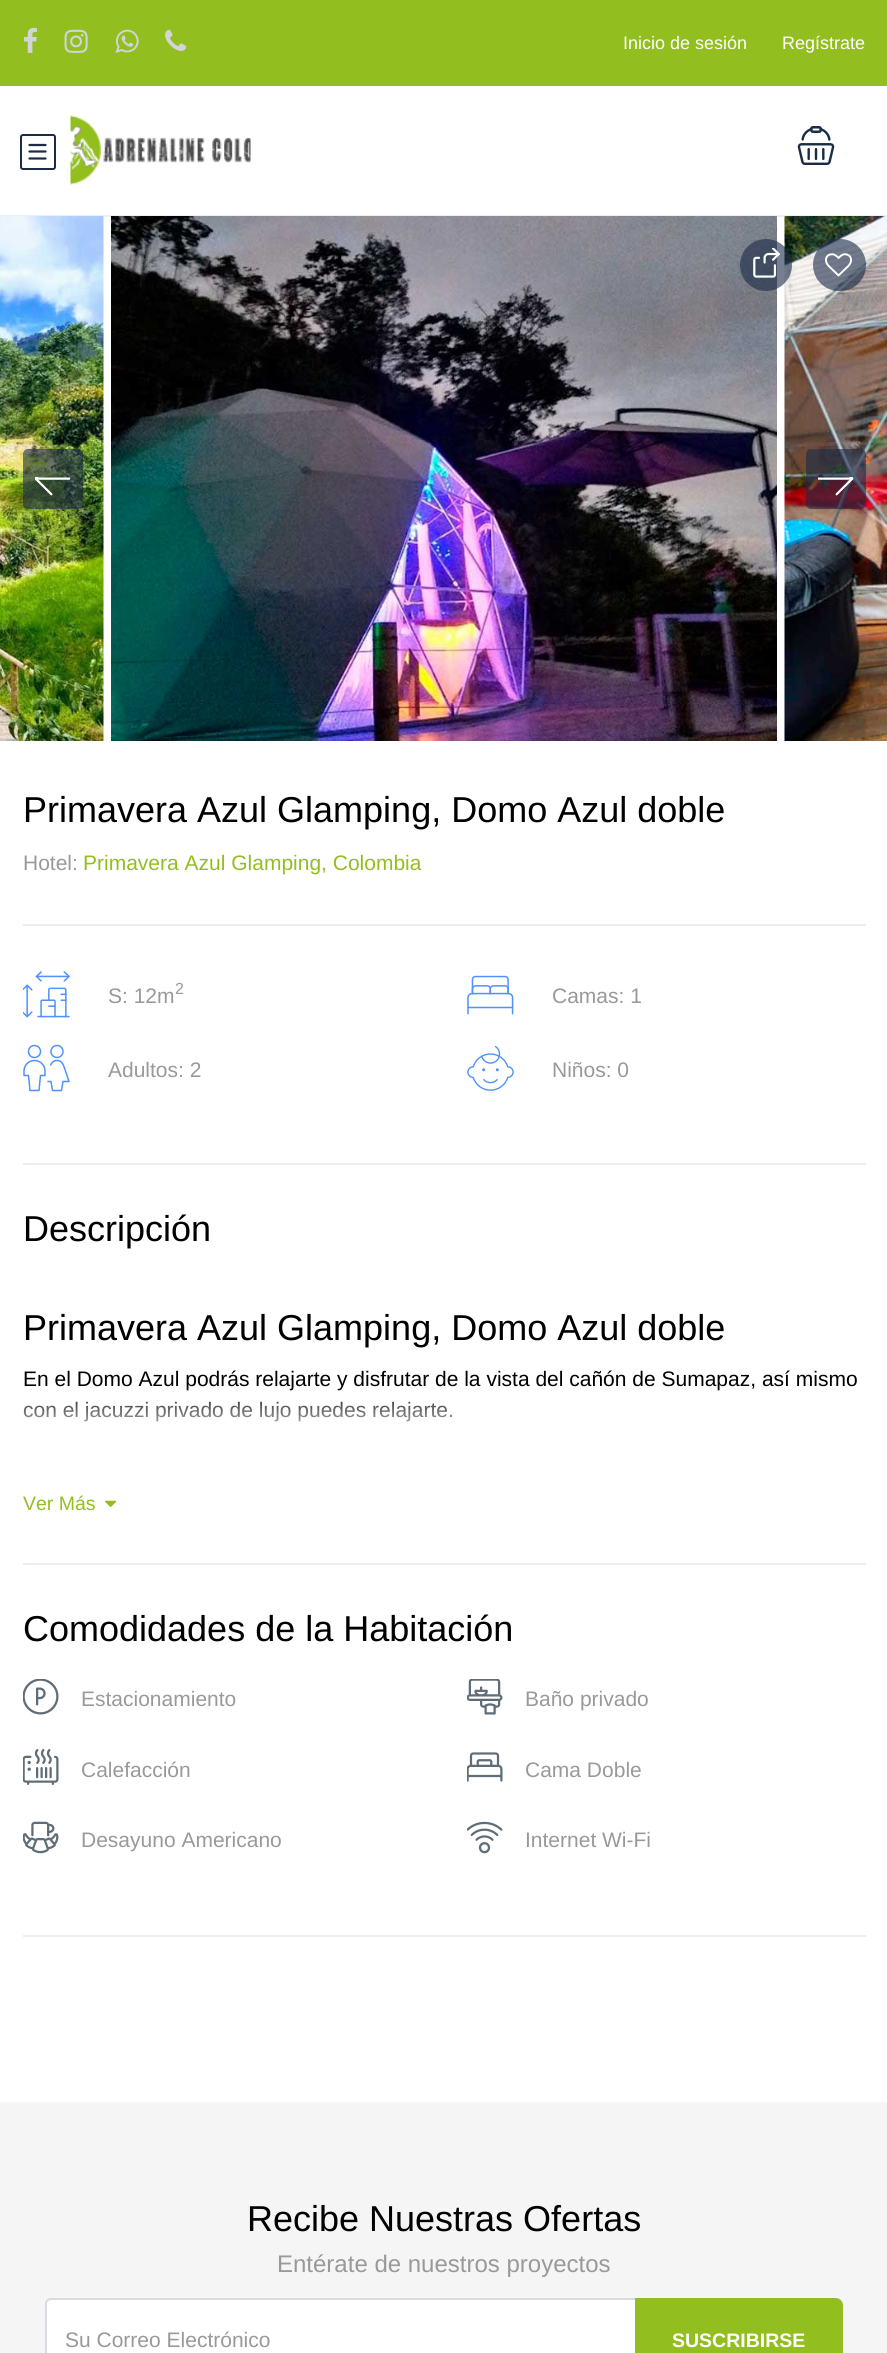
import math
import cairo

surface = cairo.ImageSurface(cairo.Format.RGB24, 887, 2353)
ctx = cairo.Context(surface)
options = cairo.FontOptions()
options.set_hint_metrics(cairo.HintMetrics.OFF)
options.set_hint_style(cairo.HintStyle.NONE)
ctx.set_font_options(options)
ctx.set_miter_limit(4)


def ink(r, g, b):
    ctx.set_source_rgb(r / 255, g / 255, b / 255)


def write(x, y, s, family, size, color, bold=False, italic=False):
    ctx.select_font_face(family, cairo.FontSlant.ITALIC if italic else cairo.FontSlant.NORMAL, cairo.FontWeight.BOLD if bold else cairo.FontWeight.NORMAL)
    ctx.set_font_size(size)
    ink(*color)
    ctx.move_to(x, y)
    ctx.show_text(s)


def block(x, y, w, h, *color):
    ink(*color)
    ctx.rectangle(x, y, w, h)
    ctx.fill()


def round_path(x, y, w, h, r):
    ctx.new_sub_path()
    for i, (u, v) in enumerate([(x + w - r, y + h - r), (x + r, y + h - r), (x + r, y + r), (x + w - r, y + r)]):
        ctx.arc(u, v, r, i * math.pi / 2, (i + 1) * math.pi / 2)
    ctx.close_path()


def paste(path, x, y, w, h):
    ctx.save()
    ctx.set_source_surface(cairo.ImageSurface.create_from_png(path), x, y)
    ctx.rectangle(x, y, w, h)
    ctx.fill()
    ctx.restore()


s1 = dict(family="Liberation Sans", size=18, color=(255, 255, 255))
s2 = dict(family="Liberation Sans", size=36, color=(0, 0, 0))
s3 = dict(family="Liberation Sans", size=21, color=(153, 153, 153))
s4 = dict(family="Liberation Sans", size=21, color=(146, 191, 31))
s5 = dict(family="Liberation Sans", size=16, color=(153, 153, 153))
s6 = dict(family="Liberation Sans", size=21, color=(0, 0, 0))
s7 = dict(family="Liberation Sans", size=19.5, color=(146, 191, 31))
s8 = dict(family="Liberation Sans", size=24, color=(153, 153, 153))
s9 = dict(family="Liberation Sans", size=19.5, color=(255, 255, 255), bold=True)

ink(255, 255, 255)
ctx.paint()
block(0, 0, 887, 86, 146, 191, 31)
paste("pic1.png", 23, 27, 14, 26)
paste("pic2.png", 64, 29, 24, 24)
paste("pic3.png", 115, 29, 24, 24)
paste("pic4.png", 165, 29, 22, 22)
write(623, 49, "Inicio de sesión", **s1)
write(782, 49, "Regístrate", **s1)
block(0, 215, 887, 2, 234, 238, 243)
round_path(21, 135, 34, 34, 2)
ink(26, 43, 72)
ctx.stroke()
ctx.new_path()
ctx.move_to(29.5, 145)
ctx.line_to(45.5, 145)
ctx.move_to(29.5, 151.5)
ctx.line_to(45.5, 151.5)
ctx.move_to(29.5, 158.5)
ctx.line_to(45.5, 158.5)
ctx.set_line_width(2.2)
ctx.set_line_cap(cairo.LineCap.ROUND)
ctx.set_line_join(cairo.LineJoin.ROUND)
ctx.stroke()
paste("pic5.png", 70, 115, 181, 70)
paste("pic6.png", 797, 126, 38, 39)
paste("pic7.png", 0, 216, 104, 525)
paste("pic8.png", 111, 216, 666, 525)
paste("pic9.png", 784, 216, 103, 525)
ctx.set_source_rgba(0.102, 0.169, 0.282, 0.6)
round_path(23, 449, 60, 60, 5)
ctx.fill()
paste("pic10.png", 35, 477, 36, 19)
round_path(806, 449, 60, 60, 5)
ctx.fill()
paste("pic11.png", 818, 477, 36, 19)
ctx.arc(766, 265, 26, 0, 2 * math.pi)
ctx.fill()
paste("pic12.png", 753, 248, 27, 30)
round_path(813, 239, 53, 52, 26)
ctx.fill()
paste("pic13.png", 825, 253, 27, 24)
write(23, 822, "Primavera Azul Glamping, Domo Azul doble", **s2)
write(23, 870, "Hotel:", **s3)
write(83, 870, "Primavera Azul Glamping, Colombia", **s4)
block(23, 924, 843, 2, 234, 238, 243)
paste("pic14.png", 23, 971, 47, 47)
write(108, 1003, "S: 12m", **s3)
write(175, 994, "2", **s5)
paste("pic15.png", 467, 975, 47, 40)
write(552, 1003, "Camas: 1", **s3)
paste("pic16.png", 23, 1044, 47, 48)
write(108, 1077, "Adultos: 2", **s3)
paste("pic17.png", 467, 1046, 47, 45)
write(552, 1077, "Niños: 0", **s3)
block(23, 1163, 843, 2, 234, 238, 243)
write(23, 1241, "Descripción", **s2)
write(23, 1340, "Primavera Azul Glamping, Domo Azul doble", **s2)
write(23, 1386, "En el Domo Azul podrás relajarte y disfrutar de la vista del cañón de Sumapaz, así mismo", **s6)
write(23, 1417, "con el jacuzzi privado de lujo puedes relajarte.", **s6)
gradient = cairo.LinearGradient(444, 1385, 444, 1460)
gradient.add_color_stop_rgba(0.01, 1, 1, 1, 0)
gradient.add_color_stop_rgba(0.8, 1, 1, 1, 1)
ctx.set_source(gradient)
ctx.rectangle(23, 1387, 731, 35)
ctx.fill()
write(23, 1510, "Ver Más", **s7)
paste("pic18.png", 105, 1500, 12, 7)
block(23, 1563, 843, 2, 234, 238, 243)
write(23, 1641, "Comodidades de la Habitación", **s2)
paste("pic19.png", 23, 1679, 36, 36)
write(81, 1706, "Estacionamiento", **s3)
paste("pic20.png", 467, 1679, 36, 36)
write(525, 1706, "Baño privado", **s3)
paste("pic21.png", 23, 1749, 36, 36)
write(81, 1777, "Calefacción", **s3)
paste("pic22.png", 467, 1752, 36, 30)
write(525, 1777, "Cama Doble", **s3)
paste("pic23.png", 23, 1821, 36, 33)
write(81, 1847, "Desayuno Americano", **s3)
paste("pic24.png", 467, 1821, 36, 33)
write(525, 1847, "Internet Wi-Fi", **s3)
block(23, 1935, 843, 2, 234, 238, 243)
block(0, 2102, 887, 251, 245, 245, 245)
write(247, 2231, "Recibe Nuestras Ofertas", **s2)
write(277, 2272, "Entérate de nuestros proyectos", **s8)
ink(255, 255, 255)
round_path(46, 2299, 796, 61, 5)
ctx.fill_preserve()
ink(215, 220, 227)
ctx.set_line_width(2)
ctx.set_line_cap(cairo.LineCap.BUTT)
ctx.set_line_join(cairo.LineJoin.MITER)
ctx.stroke()
write(65, 2347, "Su Correo Electrónico", **s3)
ink(146, 191, 31)
ctx.new_path()
ctx.move_to(635, 2298)
ctx.line_to(835, 2298)
ctx.curve_to(839.5, 2298, 843, 2301.5, 843, 2306)
ctx.line_to(843, 2353)
ctx.curve_to(843, 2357.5, 839.5, 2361, 835, 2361)
ctx.line_to(635, 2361)
ctx.close_path()
ctx.fill()
write(672, 2347, "SUSCRIBIRSE", **s9)
surface.write_to_png("screenshot.png")
